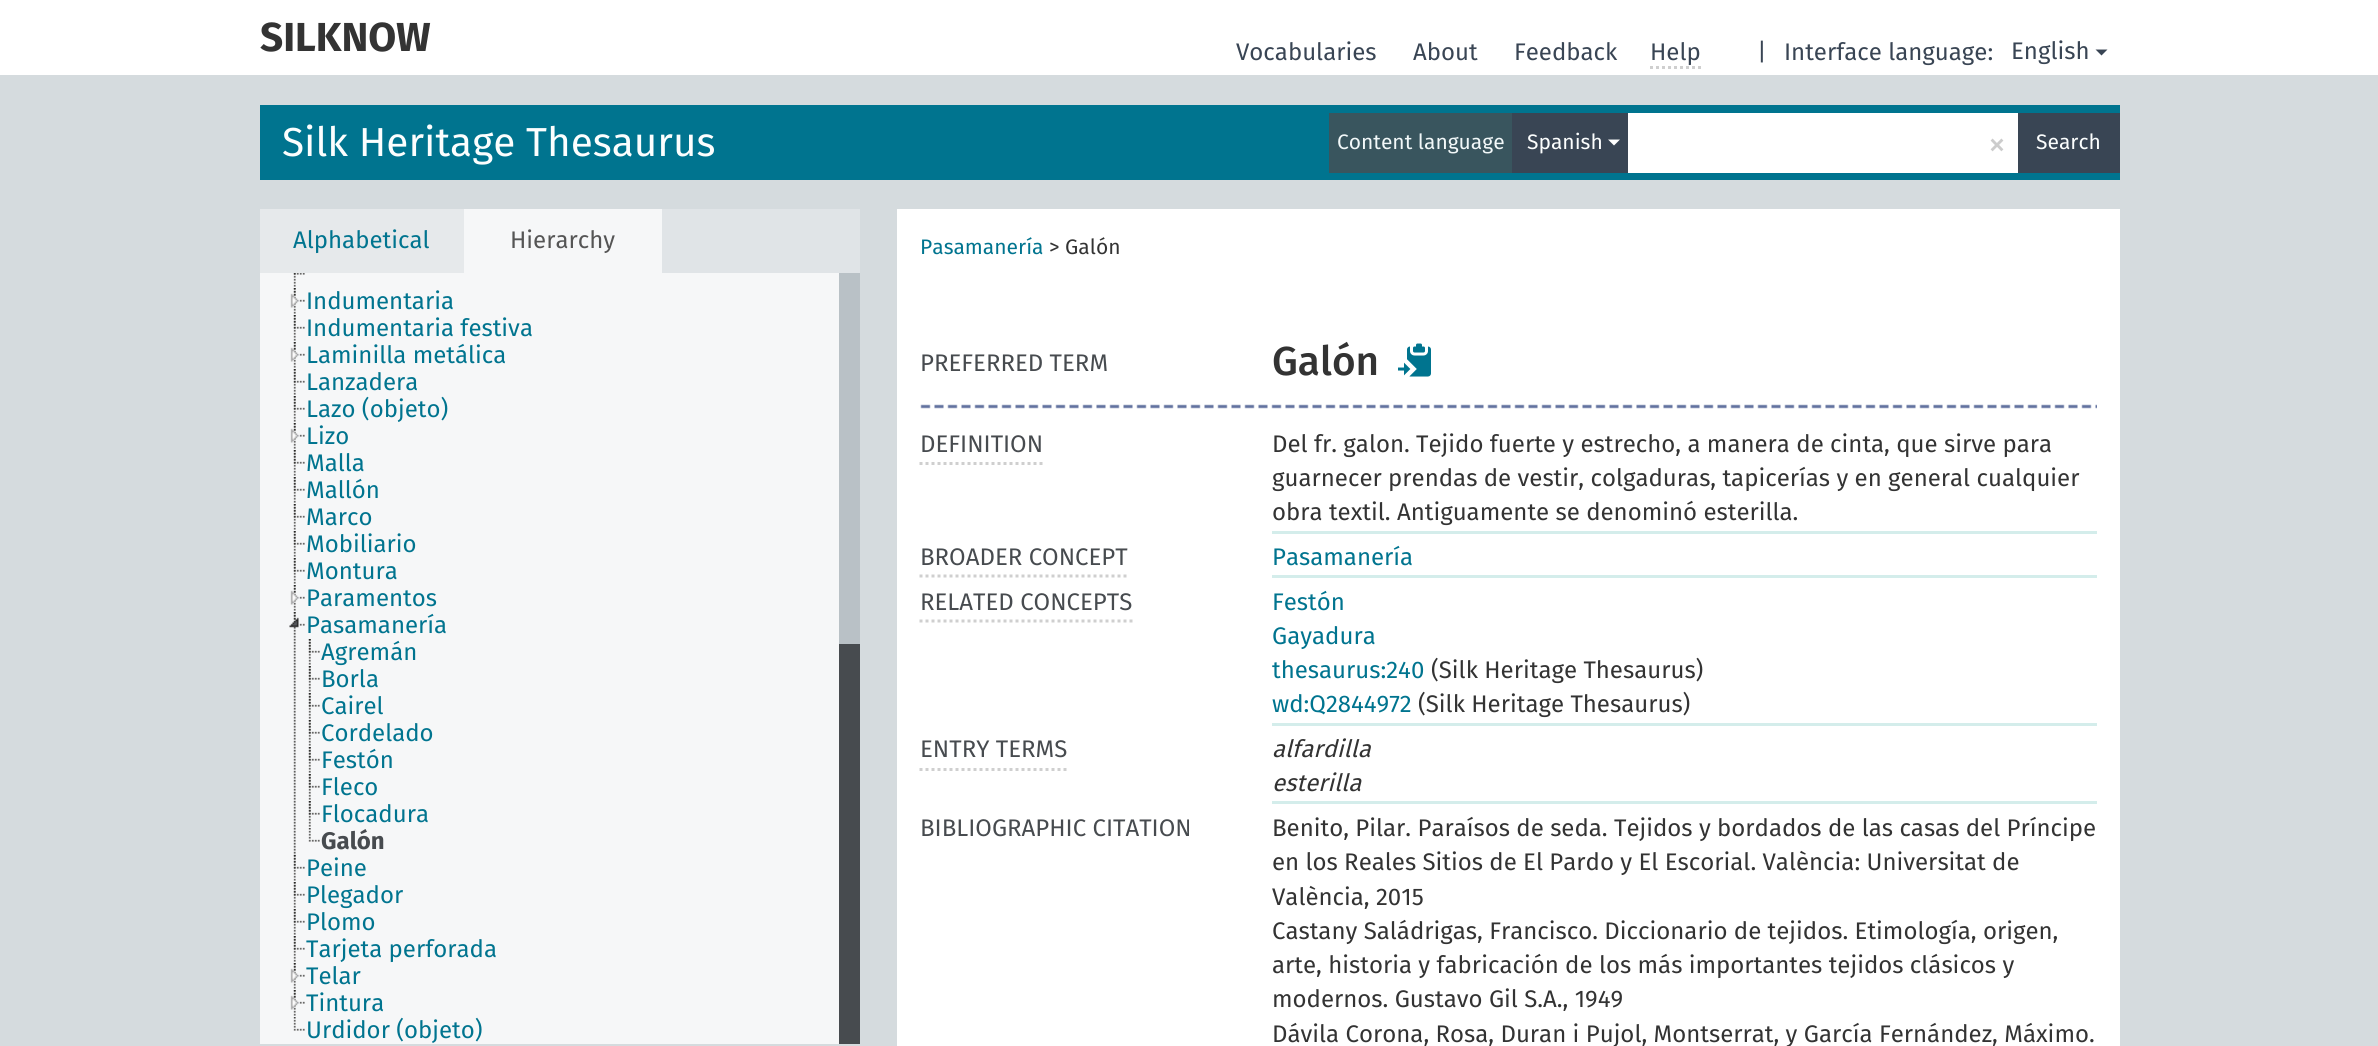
import math
import cairo

surface = cairo.ImageSurface(cairo.Format.RGB24, 2378, 1046)
ctx = cairo.Context(surface)
options = cairo.FontOptions()
options.set_hint_metrics(cairo.HintMetrics.OFF)
options.set_hint_style(cairo.HintStyle.NONE)
ctx.set_font_options(options)
ctx.set_miter_limit(4)


def ink(r, g, b):
    ctx.set_source_rgb(r / 255, g / 255, b / 255)


def write(x, y, s, family, size, color, bold=False, italic=False):
    ctx.select_font_face(family, cairo.FontSlant.ITALIC if italic else cairo.FontSlant.NORMAL, cairo.FontWeight.BOLD if bold else cairo.FontWeight.NORMAL)
    ctx.set_font_size(size)
    ink(*color)
    ctx.move_to(x, y)
    ctx.show_text(s)


def block(x, y, w, h, *color):
    ink(*color)
    ctx.rectangle(x, y, w, h)
    ctx.fill()


def paste(path, x, y, w, h):
    ctx.save()
    ctx.set_source_surface(cairo.ImageSurface.create_from_png(path), x, y)
    ctx.rectangle(x, y, w, h)
    ctx.fill()
    ctx.restore()


s1 = dict(family="Fira Sans", size=40.5, color=(51, 51, 51), bold=True)
s2 = dict(family="Fira Sans", size=24, color=(57, 69, 84))
s3 = dict(family="Fira Sans", size=40.5, color=(252, 254, 254))
s4 = dict(family="Fira Sans", size=21, color=(242, 248, 249))
s5 = dict(family="Fira Sans", size=21, color=(252, 254, 254))
s6 = dict(family="Fira Sans", size=36, color=(204, 204, 204))
s7 = dict(family="Fira Sans", size=24, color=(0, 116, 143))
s8 = dict(family="Fira Sans", size=24, color=(85, 85, 85))
s9 = dict(family="Fira Sans", size=24, color=(71, 75, 79), bold=True)
s10 = dict(family="Fira Sans", size=21, color=(0, 116, 143))
s11 = dict(family="Fira Sans", size=21, color=(51, 51, 51))
s12 = dict(family="Fira Sans", size=24, color=(71, 75, 79))
s13 = dict(family="Fira Sans Medium", size=40.5, color=(51, 51, 51))
s14 = dict(family="Fira Sans", size=24, color=(51, 51, 51))
s15 = dict(family="Fira Sans", size=24, color=(51, 51, 51), italic=True)

ink(213, 219, 222)
ctx.paint()
block(0, 0, 2378, 75, 255, 255, 255)
write(260, 51, "SILKNOW", **s1)
write(1236, 60, "Vocabularies", **s2)
write(1413, 60, "About", **s2)
write(1514, 60, "Feedback", **s2)
write(1650, 60, "Help", **s2)
ctx.new_path()
ctx.move_to(1650, 67.5)
ctx.line_to(1701, 67.5)
ink(207, 207, 207)
ctx.set_line_width(3)
ctx.set_dash([3, 3])
ctx.stroke()
write(1757, 60, "|", **s2)
write(1784, 60, "Interface language:", **s2)
write(2011, 59, "English", **s2)
ctx.new_path()
ctx.move_to(2095.5, 49.5)
ctx.line_to(2107.5, 49.5)
ctx.line_to(2101.5, 55.5)
ctx.close_path()
ctx.fill()
block(260, 105, 1860, 75, 0, 116, 143)
write(282, 156, "Silk Heritage Thesaurus", **s3)
block(1329, 113, 183, 60, 57, 85, 94)
write(1337, 149, "Content language", **s4)
block(1512, 113, 116, 60, 57, 69, 84)
write(1527, 149, "Spanish", **s5)
ink(255, 255, 255)
ctx.new_path()
ctx.move_to(1608, 139.5)
ctx.line_to(1620, 139.5)
ctx.line_to(1614, 145.5)
ctx.close_path()
ctx.fill()
block(1628, 113, 390, 60, 255, 255, 255)
write(1988, 156, "×", **s6)
block(2018, 113, 102, 60, 57, 69, 84)
write(2036, 149, "Search", **s5)
block(662, 209, 198, 64, 224, 228, 231)
block(260, 209, 204, 64, 230, 233, 235)
write(293, 248, "Alphabetical", **s7)
block(464, 209, 198, 64, 246, 247, 248)
write(510, 248, "Hierarchy", **s8)
block(260, 273, 579, 771, 246, 247, 248)
paste("pic1.png", 293, 273, 3, 14)
paste("pic2.png", 293, 273, 12, 2)
paste("pic3.png", 293, 288, 3, 26)
paste("pic4.png", 290, 288, 15, 20)
write(306, 309, "Indumentaria", **s7)
paste("pic3.png", 293, 315, 3, 26)
paste("pic5.png", 293, 315, 12, 14)
write(306, 336, "Indumentaria festiva", **s7)
paste("pic3.png", 293, 342, 3, 26)
paste("pic4.png", 290, 342, 15, 20)
write(306, 363, "Laminilla metálica", **s7)
paste("pic3.png", 293, 369, 3, 26)
paste("pic5.png", 293, 369, 12, 14)
write(306, 390, "Lanzadera", **s7)
paste("pic3.png", 293, 396, 3, 26)
paste("pic5.png", 293, 396, 12, 14)
write(306, 417, "Lazo (objeto)", **s7)
paste("pic3.png", 293, 423, 3, 26)
paste("pic4.png", 290, 423, 15, 20)
write(306, 444, "Lizo", **s7)
paste("pic3.png", 293, 450, 3, 26)
paste("pic5.png", 293, 450, 12, 14)
write(306, 471, "Malla", **s7)
paste("pic3.png", 293, 477, 3, 26)
paste("pic5.png", 293, 477, 12, 14)
write(306, 498, "Mallón", **s7)
paste("pic3.png", 293, 504, 3, 26)
paste("pic5.png", 293, 504, 12, 14)
write(306, 525, "Marco", **s7)
paste("pic3.png", 293, 531, 3, 26)
paste("pic5.png", 293, 531, 12, 14)
write(306, 552, "Mobiliario", **s7)
paste("pic3.png", 293, 558, 3, 26)
paste("pic5.png", 293, 558, 12, 14)
write(306, 579, "Montura", **s7)
paste("pic3.png", 293, 585, 3, 26)
paste("pic4.png", 290, 585, 15, 20)
write(306, 606, "Paramentos", **s7)
paste("pic6.png", 293, 612, 3, 243)
paste("pic7.png", 289, 612, 16, 16)
write(306, 633, "Pasamanería", **s7)
paste("pic8.png", 308, 639, 3, 26)
paste("pic9.png", 308, 639, 12, 14)
write(321, 660, "Agremán", **s7)
paste("pic8.png", 308, 666, 3, 26)
paste("pic9.png", 308, 666, 12, 14)
write(321, 687, "Borla", **s7)
paste("pic8.png", 308, 693, 3, 26)
paste("pic9.png", 308, 693, 12, 14)
write(321, 714, "Cairel", **s7)
paste("pic8.png", 308, 720, 3, 26)
paste("pic9.png", 308, 720, 12, 14)
write(321, 741, "Cordelado", **s7)
paste("pic8.png", 308, 747, 3, 26)
paste("pic9.png", 308, 747, 12, 14)
write(321, 768, "Festón", **s7)
paste("pic8.png", 308, 774, 3, 26)
paste("pic9.png", 308, 774, 12, 14)
write(321, 795, "Fleco", **s7)
paste("pic8.png", 308, 801, 3, 26)
paste("pic9.png", 308, 801, 12, 14)
write(321, 822, "Flocadura", **s7)
paste("pic10.png", 308, 828, 12, 14)
write(321, 849, "Galón", **s9)
paste("pic3.png", 293, 855, 3, 26)
paste("pic5.png", 293, 855, 12, 14)
write(306, 876, "Peine", **s7)
paste("pic3.png", 293, 882, 3, 26)
paste("pic5.png", 293, 882, 12, 14)
write(306, 903, "Plegador", **s7)
paste("pic3.png", 293, 909, 3, 26)
paste("pic5.png", 293, 909, 12, 14)
write(306, 930, "Plomo", **s7)
paste("pic3.png", 293, 936, 3, 26)
paste("pic5.png", 293, 936, 12, 14)
write(306, 957, "Tarjeta perforada", **s7)
paste("pic3.png", 293, 963, 3, 26)
paste("pic4.png", 290, 963, 15, 20)
write(306, 984, "Telar", **s7)
paste("pic3.png", 293, 990, 3, 26)
paste("pic4.png", 290, 990, 15, 20)
write(306, 1011, "Tintura", **s7)
paste("pic11.png", 293, 1017, 12, 14)
write(306, 1038, "Urdidor (objeto)", **s7)
block(839, 273, 21, 371, 185, 193, 198)
block(839, 644, 21, 400, 71, 75, 79)
block(897, 209, 1223, 837, 255, 255, 255)
write(920, 254, "Pasamanería", **s10)
write(1049, 254, "> Galón", **s11)
write(920, 371, "PREFERRED TERM", **s12)
write(1272, 375, "Galón", **s13)
paste("pic12.png", 1398, 343, 33, 34)
paste("pic13.png", 920, 404, 1177, 5)
ctx.new_path()
ctx.move_to(919.5, 463.5)
ctx.line_to(1042.5, 463.5)
ink(207, 207, 207)
ctx.stroke()
write(920, 452, "DEFINITION", **s12)
block(1272, 531, 825, 3, 212, 237, 235)
write(1272, 452, "Del fr. galon. Tejido fuerte y estrecho, a manera de cinta, que sirve para", **s14)
write(1272, 486, "guarnecer prendas de vestir, colgaduras, tapicerías y en general cualquier", **s14)
write(1272, 520, "obra textil. Antiguamente se denominó esterilla.", **s14)
ctx.new_path()
ctx.move_to(919.5, 576)
ctx.line_to(1126.5, 576)
ink(207, 207, 207)
ctx.stroke()
write(920, 565, "BROADER CONCEPT", **s12)
block(1272, 575, 825, 3, 212, 237, 235)
write(1272, 565, "Pasamanería", **s7)
ctx.new_path()
ctx.move_to(919.5, 621)
ctx.line_to(1132.5, 621)
ink(207, 207, 207)
ctx.stroke()
write(920, 610, "RELATED CONCEPTS", **s12)
block(1272, 723, 825, 3, 212, 237, 235)
write(1272, 610, "Festón", **s7)
write(1272, 644, "Gayadura", **s7)
write(1272, 678, "thesaurus:240", **s7)
write(1431, 678, "(Silk Heritage Thesaurus)", **s14)
write(1272, 712, "wd:Q2844972", **s7)
write(1418, 712, "(Silk Heritage Thesaurus)", **s14)
ctx.new_path()
ctx.move_to(919.5, 769.5)
ctx.line_to(1066.5, 769.5)
ink(207, 207, 207)
ctx.stroke()
write(920, 757, "ENTRY TERMS", **s12)
block(1272, 801, 825, 3, 212, 237, 235)
write(1272, 757, "alfardilla", **s15)
write(1272, 791, "esterilla", **s15)
write(920, 836, "BIBLIOGRAPHIC CITATION", **s12)
write(1272, 836, "Benito, Pilar. Paraísos de seda. Tejidos y bordados de las casas del Príncipe", **s14)
write(1272, 870, "en los Reales Sitios de El Pardo y El Escorial. València: Universitat de", **s14)
write(1272, 905, "València, 2015", **s14)
write(1272, 939, "Castany Saládrigas, Francisco. Diccionario de tejidos. Etimología, origen,", **s14)
write(1272, 973, "arte, historia y fabricación de los más importantes tejidos clásicos y", **s14)
write(1272, 1007, "modernos. Gustavo Gil S.A., 1949", **s14)
write(1272, 1042, "Dávila Corona, Rosa, Duran i Pujol, Montserrat, y García Fernández, Máximo.", **s14)
surface.write_to_png("screenshot.png")
